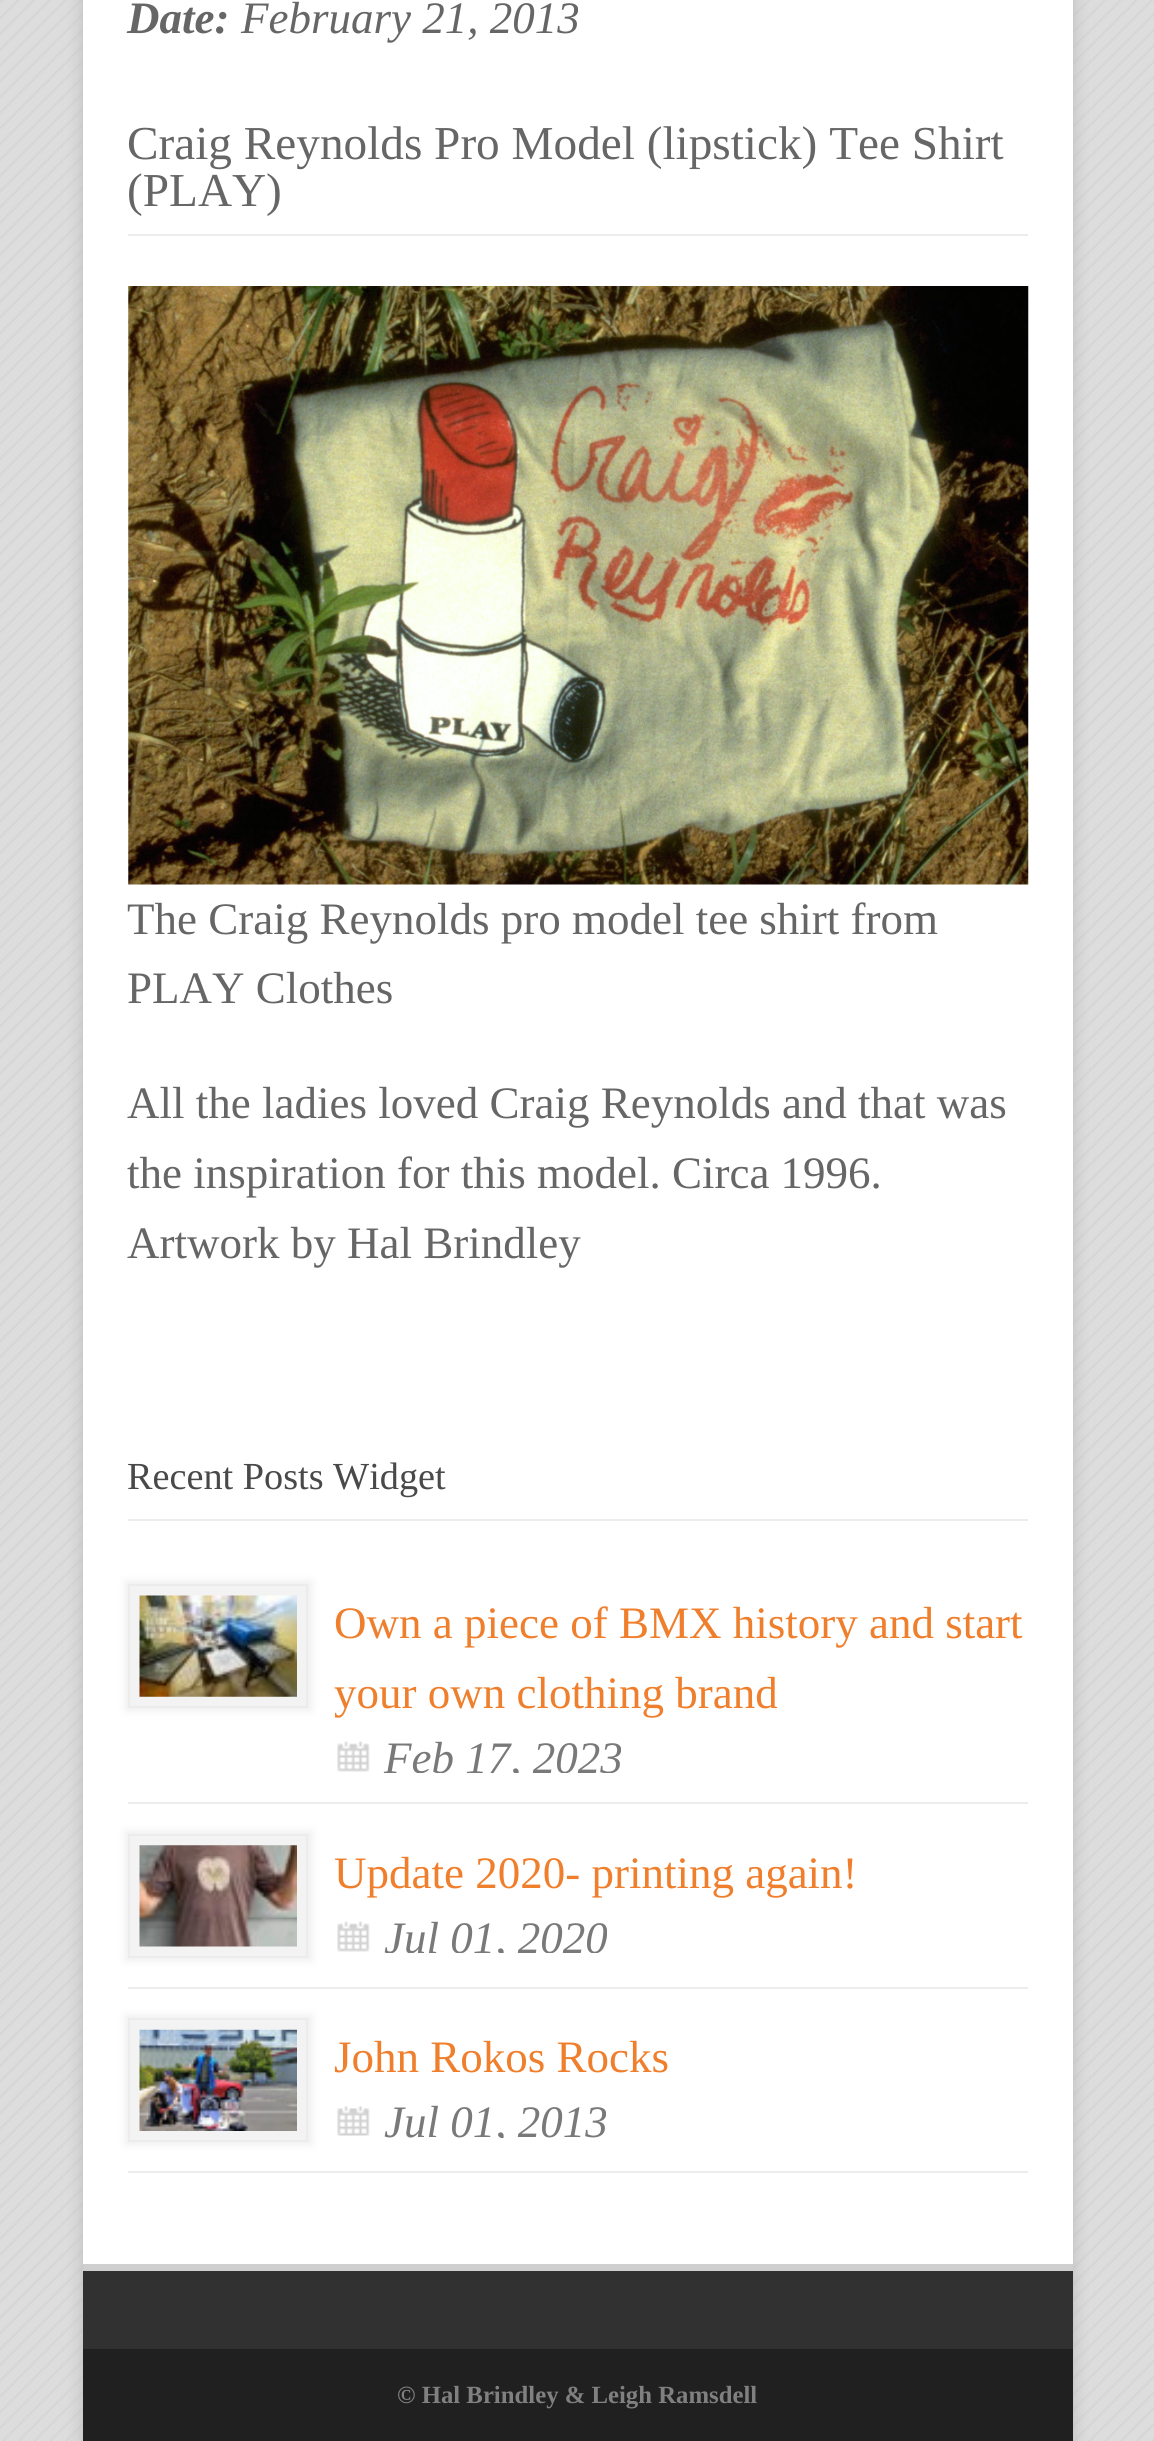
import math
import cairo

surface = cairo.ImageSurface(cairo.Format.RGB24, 1154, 2441)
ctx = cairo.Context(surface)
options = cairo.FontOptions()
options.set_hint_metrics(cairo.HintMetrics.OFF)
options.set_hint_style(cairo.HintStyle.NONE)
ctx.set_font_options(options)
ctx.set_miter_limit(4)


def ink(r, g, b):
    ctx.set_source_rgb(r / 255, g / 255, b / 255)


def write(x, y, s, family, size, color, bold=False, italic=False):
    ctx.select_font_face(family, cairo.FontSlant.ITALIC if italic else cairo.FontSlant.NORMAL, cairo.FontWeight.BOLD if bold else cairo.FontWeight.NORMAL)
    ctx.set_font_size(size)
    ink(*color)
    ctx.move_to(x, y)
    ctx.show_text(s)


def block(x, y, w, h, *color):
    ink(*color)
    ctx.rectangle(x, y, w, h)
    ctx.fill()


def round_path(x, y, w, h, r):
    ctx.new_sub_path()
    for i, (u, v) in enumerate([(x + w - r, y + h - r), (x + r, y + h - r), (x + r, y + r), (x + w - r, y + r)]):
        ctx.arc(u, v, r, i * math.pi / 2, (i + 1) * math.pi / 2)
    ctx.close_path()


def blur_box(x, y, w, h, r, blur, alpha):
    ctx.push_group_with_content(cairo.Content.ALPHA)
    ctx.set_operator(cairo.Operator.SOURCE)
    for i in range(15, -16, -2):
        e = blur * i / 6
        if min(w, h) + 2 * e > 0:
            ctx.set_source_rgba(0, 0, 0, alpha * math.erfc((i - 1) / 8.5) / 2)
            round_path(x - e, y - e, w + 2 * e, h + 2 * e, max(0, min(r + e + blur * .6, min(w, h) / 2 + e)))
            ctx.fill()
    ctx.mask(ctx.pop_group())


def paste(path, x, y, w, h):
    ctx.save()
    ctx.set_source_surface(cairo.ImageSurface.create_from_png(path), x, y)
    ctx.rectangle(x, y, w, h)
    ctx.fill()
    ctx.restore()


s1 = dict(family="Liberation Serif", size=45, color=(102, 102, 102), bold=True, italic=True)
s2 = dict(family="Liberation Serif", size=45, color=(102, 102, 102), italic=True)
s3 = dict(family="Liberation Serif", size=47.25, color=(102, 102, 102))
s4 = dict(family="Liberation Serif", size=45, color=(102, 102, 102))
s5 = dict(family="Liberation Serif", size=38.25, color=(73, 73, 73))
s6 = dict(family="Liberation Serif", size=45, color=(239, 127, 44))
s7 = dict(family="Liberation Serif", size=45, color=(121, 121, 121), italic=True)
s8 = dict(family="Liberation Serif", size=24.75, color=(128, 128, 128), bold=True)

ink(221, 221, 221)
ctx.paint()
paste("pic1.png", 0, 0, 1154, 2441)
ink(187, 187, 187)
blur_box(83, -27, 990, 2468, 0, 9, 1)
block(83, 0, 990, 2264, 255, 255, 255)
write(127, 33, "Date:", **s1)
write(241, 33, "February 21, 2013", **s2)
block(128, 234, 900, 2, 236, 236, 236)
write(127, 159, "Craig Reynolds Pro Model (lipstick) Tee Shirt", **s3)
write(127, 206, "(PLAY)", **s3)
paste("pic2.png", 128, 286, 901, 599)
write(127, 934, "The Craig Reynolds pro model tee shirt from", **s4)
write(127, 1003, "PLAY Clothes", **s4)
write(127, 1118, "All the ladies loved Craig Reynolds and that was", **s4)
write(127, 1188, "the inspiration for this model. Circa 1996.", **s4)
write(127, 1258, "Artwork by Hal Brindley", **s4)
block(128, 1519, 900, 2, 236, 236, 236)
write(127, 1489, "Recent Posts Widget", **s5)
block(128, 1802, 900, 2, 236, 236, 236)
ink(236, 236, 236)
blur_box(126, 1582, 185, 128, 0, 4.5, 1)
ink(243, 243, 243)
ctx.rectangle(129, 1585, 178, 122)
ctx.fill_preserve()
ink(236, 236, 236)
ctx.stroke()
paste("pic3.png", 139, 1595, 158, 102)
write(334, 1638, "Own a piece of BMX history and start", **s6)
write(334, 1708, "your own clothing brand", **s6)
paste("pic4.png", 337, 1741, 33, 31)
ctx.save()
ctx.rectangle(335, 1589, 693, 184)
ctx.clip()
write(384, 1773, "Feb 17, 2023", **s7)
ctx.restore()
block(128, 1987, 900, 2, 236, 236, 236)
ink(236, 236, 236)
blur_box(126, 1832, 185, 128, 0, 4.5, 1)
ink(243, 243, 243)
ctx.rectangle(129, 1835, 178, 122)
ctx.fill_preserve()
ink(236, 236, 236)
ctx.stroke()
paste("pic5.png", 139, 1845, 158, 102)
write(334, 1888, "Update 2020- printing again!", **s6)
paste("pic4.png", 337, 1921, 33, 31)
ctx.save()
ctx.rectangle(335, 1838, 693, 115)
ctx.clip()
write(384, 1953, "Jul 01, 2020", **s7)
ctx.restore()
block(128, 2171, 900, 2, 236, 236, 236)
ink(236, 236, 236)
blur_box(126, 2016, 185, 128, 0, 4.5, 1)
ink(243, 243, 243)
ctx.rectangle(129, 2019, 178, 122)
ctx.fill_preserve()
ink(236, 236, 236)
ctx.stroke()
paste("pic6.png", 139, 2029, 158, 102)
write(334, 2072, "John Rokos Rocks", **s6)
paste("pic7.png", 337, 2106, 33, 30)
ctx.save()
ctx.rectangle(335, 2023, 693, 115)
ctx.clip()
write(384, 2137, "Jul 01, 2013", **s7)
ctx.restore()
block(83, 2271, 990, 78, 49, 49, 49)
block(83, 2264, 990, 7, 207, 207, 207)
block(83, 2349, 990, 92, 32, 32, 32)
write(397, 2403, "© Hal Brindley & Leigh Ramsdell", **s8)
surface.write_to_png("screenshot.png")
